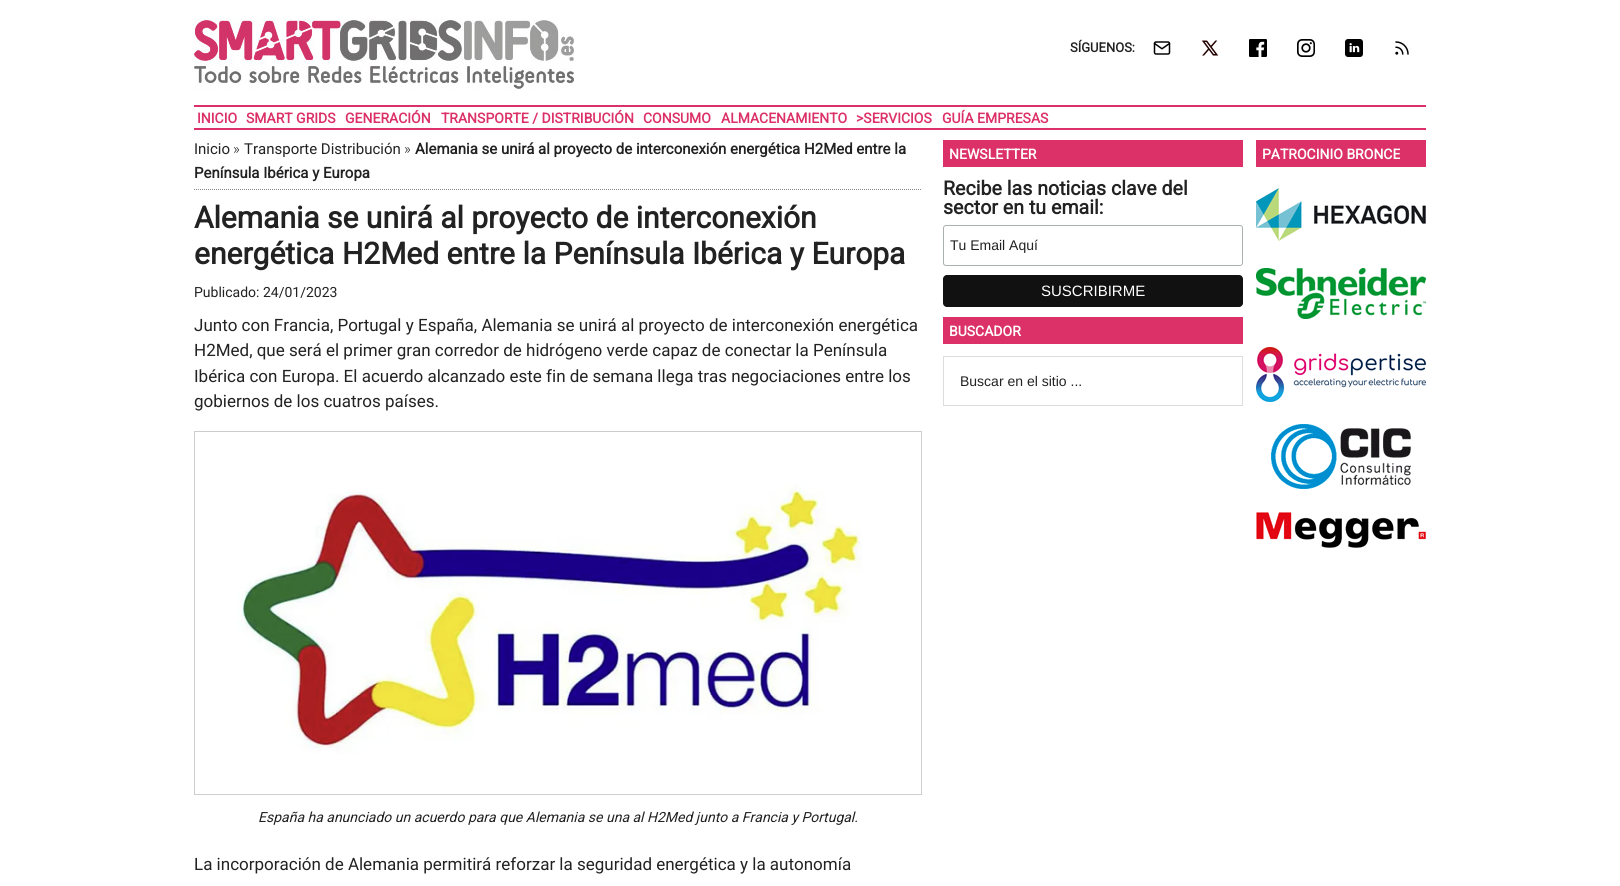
import math
import cairo

surface = cairo.ImageSurface(cairo.Format.RGB24, 1620, 886)
ctx = cairo.Context(surface)
options = cairo.FontOptions()
options.set_hint_metrics(cairo.HintMetrics.OFF)
options.set_hint_style(cairo.HintStyle.NONE)
ctx.set_font_options(options)
ctx.set_miter_limit(4)


def ink(r, g, b):
    ctx.set_source_rgb(r / 255, g / 255, b / 255)


def write(x, y, s, family, size, color, bold=False, italic=False):
    ctx.select_font_face(family, cairo.FontSlant.ITALIC if italic else cairo.FontSlant.NORMAL, cairo.FontWeight.BOLD if bold else cairo.FontWeight.NORMAL)
    ctx.set_font_size(size)
    ink(*color)
    ctx.move_to(x, y)
    ctx.show_text(s)


def block(x, y, w, h, *color):
    ink(*color)
    ctx.rectangle(x, y, w, h)
    ctx.fill()


def round_path(x, y, w, h, r):
    ctx.new_sub_path()
    for i, (u, v) in enumerate([(x + w - r, y + h - r), (x + r, y + h - r), (x + r, y + r), (x + w - r, y + r)]):
        ctx.arc(u, v, r, i * math.pi / 2, (i + 1) * math.pi / 2)
    ctx.close_path()


def paste(path, x, y, w, h):
    ctx.save()
    ctx.set_source_surface(cairo.ImageSurface.create_from_png(path), x, y)
    ctx.rectangle(x, y, w, h)
    ctx.fill()
    ctx.restore()


s1 = dict(family="Roboto", size=13, color=(34, 34, 34), bold=True)
s2 = dict(family="Roboto", size=14, color=(219, 49, 104), bold=True)
s3 = dict(family="Roboto", size=15, color=(34, 34, 34))
s4 = dict(family="Roboto Light", size=15, color=(34, 34, 34))
s5 = dict(family="Roboto", size=15, color=(34, 34, 34), bold=True)
s6 = dict(family="Roboto", size=30, color=(34, 34, 34), bold=True)
s7 = dict(family="Roboto", size=14, color=(34, 34, 34))
s8 = dict(family="Roboto", size=17, color=(34, 34, 34))
s9 = dict(family="Roboto", size=14, color=(34, 34, 34), italic=True)
s10 = dict(family="Roboto", size=14, color=(255, 255, 255), bold=True)
s11 = dict(family="Roboto", size=19.6, color=(34, 34, 34), bold=True)
s12 = dict(family="Liberation Sans", size=14, color=(34, 34, 34))
s13 = dict(family="Liberation Sans", size=15, color=(255, 255, 255))

ink(255, 255, 255)
ctx.paint()
block(194, 105, 1232, 2, 219, 49, 104)
paste("pic1.png", 194, 18, 380, 72)
write(1070, 52, "SÍGUENOS:", **s1)
paste("pic2.png", 1153, 41, 18, 14)
paste("pic3.png", 1201, 40, 18, 16)
paste("pic4.png", 1249, 39, 18, 18)
paste("pic5.png", 1297, 39, 18, 18)
paste("pic6.png", 1345, 39, 18, 18)
paste("pic7.png", 1395, 41, 14, 14)
block(194, 128, 1232, 2, 219, 49, 104)
write(197, 123, "INICIO", **s2)
write(246, 123, "SMART GRIDS", **s2)
write(345, 123, "GENERACIÓN", **s2)
write(441, 123, "TRANSPORTE / DISTRIBUCIÓN", **s2)
write(643, 123, "CONSUMO", **s2)
write(721, 123, "ALMACENAMIENTO", **s2)
write(856, 123, ">SERVICIOS", **s2)
write(942, 123, "GUÍA EMPRESAS", **s2)
ctx.new_path()
ctx.move_to(194, 189.5)
ctx.line_to(922, 189.5)
ink(136, 136, 136)
ctx.set_line_width(1)
ctx.set_dash([1, 1])
ctx.stroke()
write(194, 154, "Inicio", **s3)
write(233, 154, "»", **s4)
write(244, 154, "Transporte Distribución", **s3)
write(404, 154, "»", **s4)
write(415, 154, "Alemania se unirá al proyecto de interconexión energética H2Med entre la", **s5)
write(194, 178, "Península Ibérica y Europa", **s5)
write(194, 228, "Alemania se unirá al proyecto de interconexión", **s6)
write(194, 264, "energética H2Med entre la Península Ibérica y Europa", **s6)
write(194, 297, "Publicado: 24/01/2023", **s7)
write(194, 331, "Junto con Francia, Portugal y España, Alemania se unirá al proyecto de interconexión energética", **s8)
write(194, 356, "H2Med, que será el primer gran corredor de hidrógeno verde capaz de conectar la Península", **s8)
write(194, 382, "Ibérica con Europa. El acuerdo alcanzado este fin de semana llega tras negociaciones entre los", **s8)
write(194, 407, "gobiernos de los cuatros países.", **s8)
paste("pic8.png", 194, 431, 728, 364)
write(258, 822, "España ha anunciado un acuerdo para que Alemania se una al H2Med junto a Francia y Portugal.", **s9)
write(194, 870, "La incorporación de Alemania permitirá reforzar la seguridad energética y la autonomía", **s8)
block(943, 140, 300, 27, 219, 49, 104)
write(949, 159, "NEWSLETTER", **s10)
write(943, 195, "Recibe las noticias clave del", **s11)
write(943, 214, "sector en tu email:", **s11)
round_path(943.5, 225.5, 299, 40, 2.5)
ink(171, 176, 178)
ctx.set_dash([])
ctx.stroke()
write(950, 250, "Tu Email Aquí", **s12)
ink(17, 17, 17)
round_path(943, 275, 300, 32, 4)
ctx.fill()
write(1041, 296, "SUSCRIBIRME", **s13)
block(943, 317, 300, 27, 219, 49, 104)
write(949, 336, "BUSCADOR", **s10)
ctx.rectangle(943.5, 356.5, 299, 49)
ink(221, 221, 221)
ctx.stroke()
write(960, 386, "Buscar en el sitio ...", **s12)
block(1256, 140, 170, 27, 219, 49, 104)
write(1262, 159, "PATROCINIO BRONCE", **s10)
paste("pic9.png", 1256, 188, 170, 53)
paste("pic10.png", 1256, 268, 170, 51)
paste("pic11.png", 1256, 347, 170, 55)
paste("pic12.png", 1271, 424, 140, 65)
paste("pic13.png", 1256, 512, 170, 36)
surface.write_to_png("screenshot.png")
